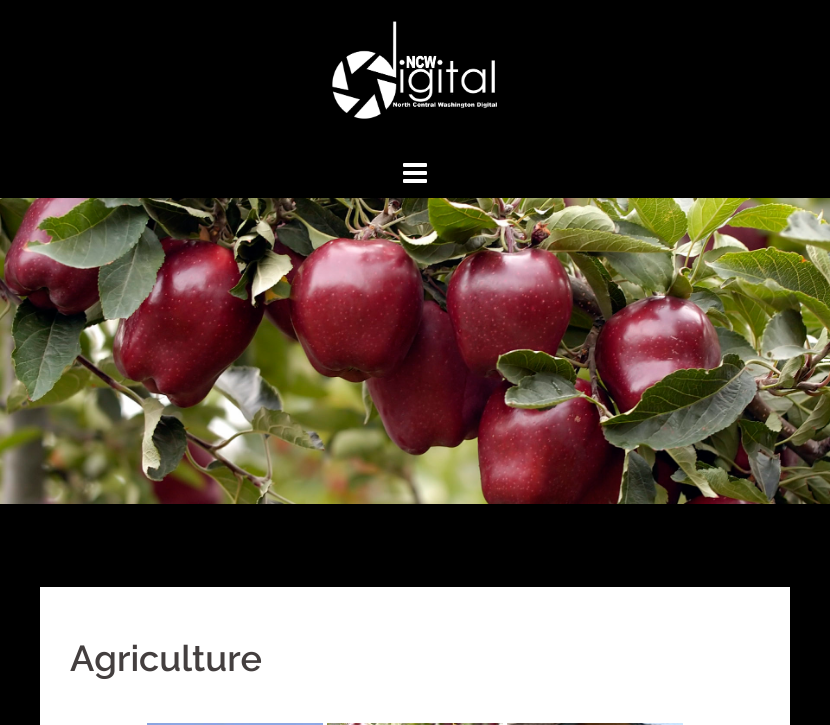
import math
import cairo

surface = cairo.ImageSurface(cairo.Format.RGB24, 830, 725)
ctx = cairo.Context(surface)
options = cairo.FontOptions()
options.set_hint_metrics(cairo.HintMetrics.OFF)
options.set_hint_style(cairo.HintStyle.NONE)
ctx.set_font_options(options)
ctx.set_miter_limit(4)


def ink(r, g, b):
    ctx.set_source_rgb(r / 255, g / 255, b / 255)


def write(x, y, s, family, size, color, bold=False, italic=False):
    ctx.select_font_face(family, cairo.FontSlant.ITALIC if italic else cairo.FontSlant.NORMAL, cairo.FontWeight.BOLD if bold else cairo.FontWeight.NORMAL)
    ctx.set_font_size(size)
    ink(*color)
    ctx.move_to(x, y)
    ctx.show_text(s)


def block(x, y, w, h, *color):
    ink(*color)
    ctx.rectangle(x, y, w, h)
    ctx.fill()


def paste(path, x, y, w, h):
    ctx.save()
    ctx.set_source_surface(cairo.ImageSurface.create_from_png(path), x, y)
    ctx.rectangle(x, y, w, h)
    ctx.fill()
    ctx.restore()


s1 = dict(family="Raleway SemiBold", size=36, color=(68, 63, 63))

ink(0, 0, 0)
ctx.paint()
paste("pic1.png", 332, 21, 165, 98)
paste("pic2.png", 403, 163, 24, 20)
paste("pic3.png", 0, 198, 830, 306)
block(40, 587, 750, 138, 255, 255, 255)
write(70, 671, "Agriculture", **s1)
paste("pic4.png", 147, 723, 176, 2)
paste("pic5.png", 327, 723, 176, 2)
paste("pic6.png", 507, 723, 176, 2)
surface.write_to_png("screenshot.png")
